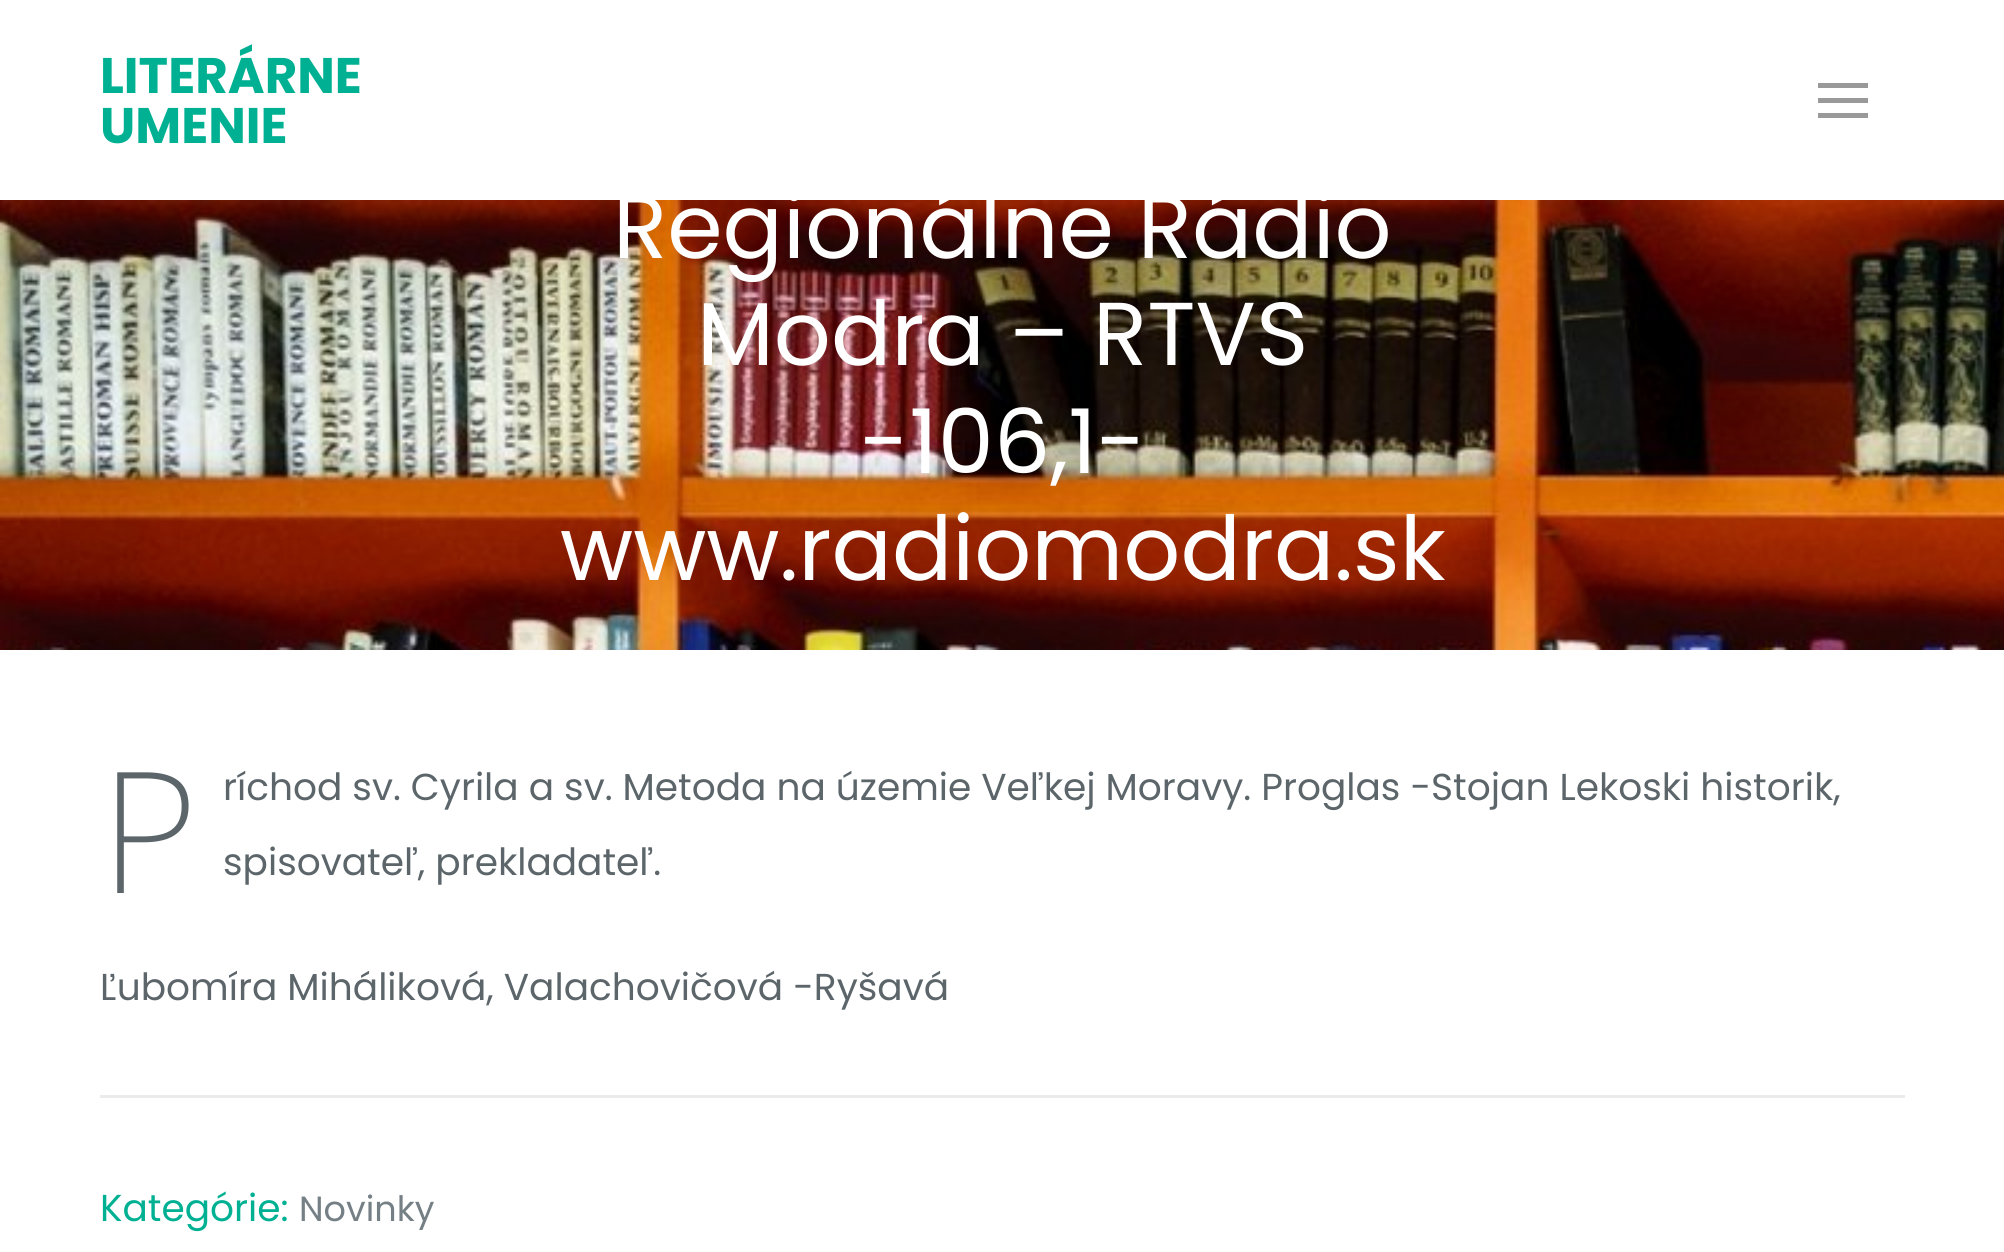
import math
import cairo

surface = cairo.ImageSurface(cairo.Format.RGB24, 2004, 1252)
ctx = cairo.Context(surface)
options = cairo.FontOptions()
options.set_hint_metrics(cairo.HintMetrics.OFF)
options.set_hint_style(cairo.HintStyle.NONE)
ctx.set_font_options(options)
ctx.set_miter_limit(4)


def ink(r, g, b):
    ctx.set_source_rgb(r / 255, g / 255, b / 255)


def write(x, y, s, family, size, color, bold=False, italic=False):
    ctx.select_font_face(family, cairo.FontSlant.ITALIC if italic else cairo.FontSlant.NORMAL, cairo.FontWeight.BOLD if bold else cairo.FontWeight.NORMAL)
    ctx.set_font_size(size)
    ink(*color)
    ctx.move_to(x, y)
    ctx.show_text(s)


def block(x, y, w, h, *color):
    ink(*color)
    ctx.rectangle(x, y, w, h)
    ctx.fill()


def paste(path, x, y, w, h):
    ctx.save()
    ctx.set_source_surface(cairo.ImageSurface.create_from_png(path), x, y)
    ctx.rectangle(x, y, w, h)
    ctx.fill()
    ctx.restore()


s1 = dict(family="Poppins", size=50, color=(0, 176, 146), bold=True)
s2 = dict(family="Poppins", size=89.25, color=(255, 255, 255))
s3 = dict(family="Noto Sans ExtraLight", size=169, color=(92, 102, 106))
s4 = dict(family="Poppins", size=37.5, color=(92, 102, 106))
s5 = dict(family="Poppins", size=37.5, color=(0, 176, 146))
s6 = dict(family="Poppins", size=35, color=(116, 128, 133))

ink(255, 255, 255)
ctx.paint()
write(100, 93, "LITERÁRNE", **s1)
write(100, 143, "UMENIE", **s1)
block(1818, 98, 50, 5, 153, 153, 153)
block(1818, 83, 50, 5, 153, 153, 153)
block(1818, 113, 50, 5, 153, 153, 153)
paste("pic1.png", 0, 200, 2004, 450)
write(613, 258, "Regionálne Rádio", **s2)
write(697, 365, "Modra – RTVS", **s2)
write(860, 473, "-106,1-", **s2)
write(560, 580, "www.radiomodra.sk", **s2)
write(100, 893, "P", **s3)
write(223, 800, "ríchod sv. Cyrila a sv. Metoda na územie Veľkej Moravy. Proglas -Stojan Lekoski historik,", **s4)
write(223, 875, "spisovateľ, prekladateľ.", **s4)
write(100, 1000, "Ľubomíra Miháliková, Valachovičová -Ryšavá", **s4)
block(100, 1095, 1805, 3, 235, 235, 235)
write(100, 1221, "Kategórie:", **s5)
write(299, 1221, "Novinky", **s6)
surface.write_to_png("screenshot.png")
